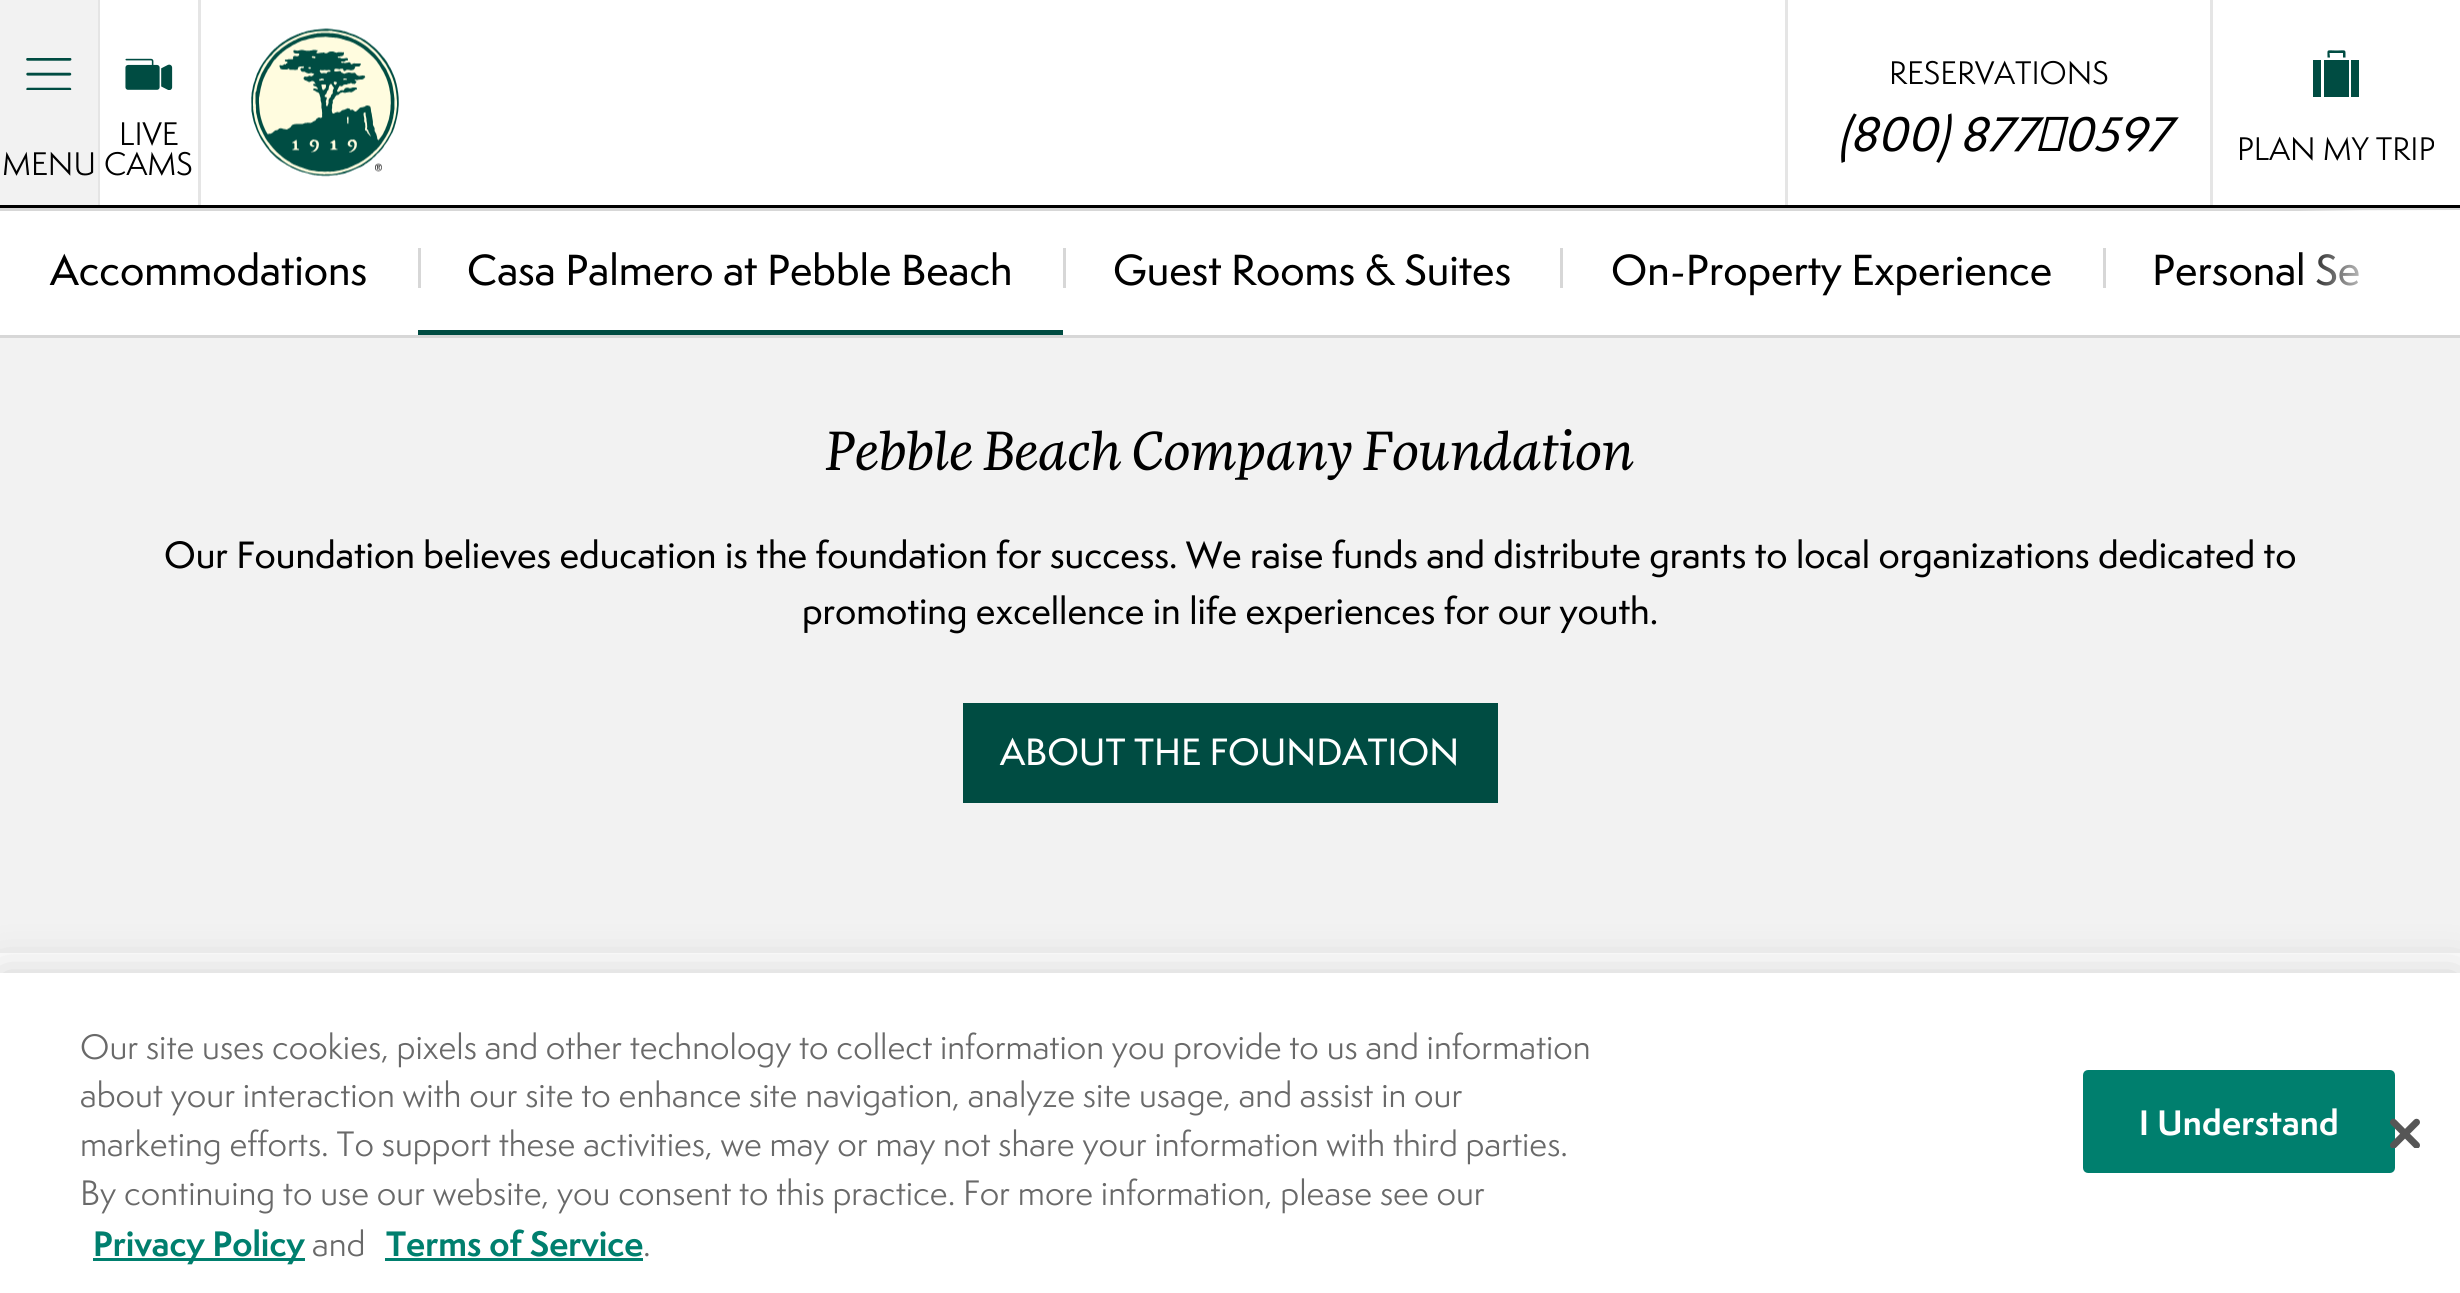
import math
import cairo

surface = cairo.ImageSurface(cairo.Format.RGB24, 2460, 1293)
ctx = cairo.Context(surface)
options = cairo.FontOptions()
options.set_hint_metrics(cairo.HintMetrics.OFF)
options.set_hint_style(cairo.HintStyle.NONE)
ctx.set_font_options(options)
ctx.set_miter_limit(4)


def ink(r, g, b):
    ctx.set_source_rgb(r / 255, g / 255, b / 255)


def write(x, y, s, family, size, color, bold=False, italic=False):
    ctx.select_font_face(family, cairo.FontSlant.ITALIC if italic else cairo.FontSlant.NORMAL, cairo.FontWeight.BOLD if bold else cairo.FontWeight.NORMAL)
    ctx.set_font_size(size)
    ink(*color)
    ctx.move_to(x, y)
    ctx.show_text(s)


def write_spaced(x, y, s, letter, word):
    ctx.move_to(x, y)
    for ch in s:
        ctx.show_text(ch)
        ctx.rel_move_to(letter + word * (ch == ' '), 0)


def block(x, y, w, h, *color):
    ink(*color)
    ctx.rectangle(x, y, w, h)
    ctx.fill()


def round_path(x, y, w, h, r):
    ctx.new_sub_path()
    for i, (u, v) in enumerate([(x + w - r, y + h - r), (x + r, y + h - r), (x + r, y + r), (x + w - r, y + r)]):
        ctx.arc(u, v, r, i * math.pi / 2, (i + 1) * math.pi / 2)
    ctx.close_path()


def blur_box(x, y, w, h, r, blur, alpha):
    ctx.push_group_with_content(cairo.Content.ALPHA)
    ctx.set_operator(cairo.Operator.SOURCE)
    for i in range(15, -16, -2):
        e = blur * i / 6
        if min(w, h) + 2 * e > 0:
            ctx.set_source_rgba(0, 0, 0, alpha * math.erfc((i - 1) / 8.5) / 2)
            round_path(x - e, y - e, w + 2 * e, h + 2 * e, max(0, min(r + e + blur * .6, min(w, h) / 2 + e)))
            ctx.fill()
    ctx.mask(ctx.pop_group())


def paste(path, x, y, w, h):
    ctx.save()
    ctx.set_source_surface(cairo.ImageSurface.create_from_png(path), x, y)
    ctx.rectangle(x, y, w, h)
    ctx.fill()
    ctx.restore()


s1 = dict(family="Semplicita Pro", size=30, color=(0, 0, 0))
s2 = dict(family="Semplicita Pro Medium", size=45, color=(0, 0, 0), italic=True)
s3 = dict(family="Semplicita Pro Medium", size=40, color=(0, 0, 0))
s4 = dict(family="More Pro", size=52.5, color=(0, 0, 0), italic=True)
s5 = dict(family="Semplicita Pro Medium", size=35, color=(0, 0, 0))
s6 = dict(family="Semplicita Pro Medium", size=35, color=(255, 255, 255))
s7 = dict(family="Semplicita Pro", size=32.5, color=(105, 105, 105))
s8 = dict(family="Semplicita Pro", size=32.5, color=(0, 127, 110), bold=True)

ink(242, 242, 242)
ctx.paint()
block(201, 0, 2259, 205, 255, 255, 255)
block(0, 205, 2460, 3, 0, 0, 0)
block(98, 0, 2, 205, 229, 229, 229)
paste("pic1.png", 26, 58, 46, 32)
write(2, 175, "MENU", **s1)
block(198, 0, 3, 205, 229, 229, 229)
block(100, 0, 98, 205, 255, 255, 255)
paste("pic2.png", 125, 58, 48, 32)
write(119, 145, "LIVE", **s1)
write(104, 175, "CAMS", **s1)
paste("pic3.png", 251, 28, 148, 149)
block(1785, 0, 3, 205, 229, 229, 229)
write(1889, 84, "RESERVATIONS", **s1)
write(1838, 151, "(800) 877‑0597", **s2)
block(2210, 0, 3, 205, 229, 229, 229)
block(2351, 60, 8, 37, 0, 76, 66)
block(2324, 60, 25, 37, 0, 76, 66)
block(2313, 60, 8, 37, 0, 76, 66)
ctx.new_path()
ctx.move_to(2329.5, 53)
ctx.line_to(2343, 53)
ctx.line_to(2343, 57.5)
ctx.line_to(2345.5, 57.5)
ctx.curve_to(2345.5, 48.5, 2346.5, 50.5, 2336.5, 50.5)
ctx.curve_to(2326, 50.5, 2327.5, 48.5, 2327.5, 57.5)
ctx.line_to(2330, 57.5)
ctx.close_path()
ctx.fill()
write(2237, 160, "PLAN MY TRIP", **s1)
block(0, 211, 2458, 124, 255, 255, 255)
block(0, 208, 2460, 3, 215, 215, 215)
block(0, 335, 2460, 3, 215, 215, 215)
write(50, 285, "Accommodations", **s3)
block(418, 248, 3, 40, 215, 215, 215)
block(418, 330, 645, 5, 0, 76, 66)
write(467, 285, "Casa Palmero at Pebble Beach", **s3)
block(1063, 248, 3, 40, 215, 215, 215)
write(1113, 285, "Guest Rooms & Suites", **s3)
block(1560, 248, 3, 40, 215, 215, 215)
write(1611, 285, "On-Property Experience", **s3)
block(2103, 248, 3, 40, 215, 215, 215)
write(2152, 285, "Personal Se", **s3)
gradient = cairo.LinearGradient(2298, 273, 2460, 273)
gradient.add_color_stop_rgba(0, 1, 1, 1, 0)
gradient.add_color_stop_rgba(0.4, 1, 1, 1, 0.75)
gradient.add_color_stop_rgba(1, 1, 1, 1, 1)
ctx.set_source(gradient)
ctx.rectangle(2300, 210, 160, 125)
ctx.fill()
write(825, 470, "Pebble Beach Company Foundation", **s4)
write(164, 568, "Our Foundation believes education is the foundation for success. We raise funds and distribute grants to local organizations dedicated to", **s5)
write(802, 624, "promoting excellence in life experiences for our youth.", **s5)
block(963, 703, 535, 100, 0, 76, 66)
write(1000, 765, "ABOUT THE FOUNDATION", **s6)
block(0, 953, 2460, 20, 255, 255, 255)
ink(0, 0, 0)
blur_box(0, 973, 2460, 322, 0, 22.5, 0.2)
block(0, 973, 2460, 320, 255, 255, 255)
write(80, 1059, "Our site uses cookies, pixels and other technology to collect information you provide to us and information", **s7)
write(80, 1107, "about your interaction with our site to enhance site navigation, analyze site usage, and assist in our", **s7)
write(80, 1156, "marketing efforts. To support these activities, we may or may not share your information with third parties.", **s7)
write(80, 1205, "By continuing to use our website, you consent to this practice.", **s7)
write(963, 1205, "For more information, please see our", **s7)
block(93, 1258, 212, 3, 0, 127, 110)
write(93, 1256, "Privacy Policy", **s8)
write(312, 1256, "and", **s7)
write(386, 1256, "Terms of Service", **s8)
block(385, 1258, 258, 3, 0, 127, 110)
write(643, 1256, ".", **s7)
ink(0, 127, 110)
round_path(2084.5, 1071.5, 309, 100, 3.5)
ctx.fill_preserve()
ctx.set_line_width(3)
ctx.stroke()
ctx.select_font_face("Semplicita Pro", cairo.FontSlant.NORMAL, cairo.FontWeight.BOLD)
ink(255, 255, 255)
write_spaced(2139, 1135, "I Understand", 0.25, 0)
paste("pic4.png", 2390, 1118, 30, 30)
surface.write_to_png("screenshot.png")
